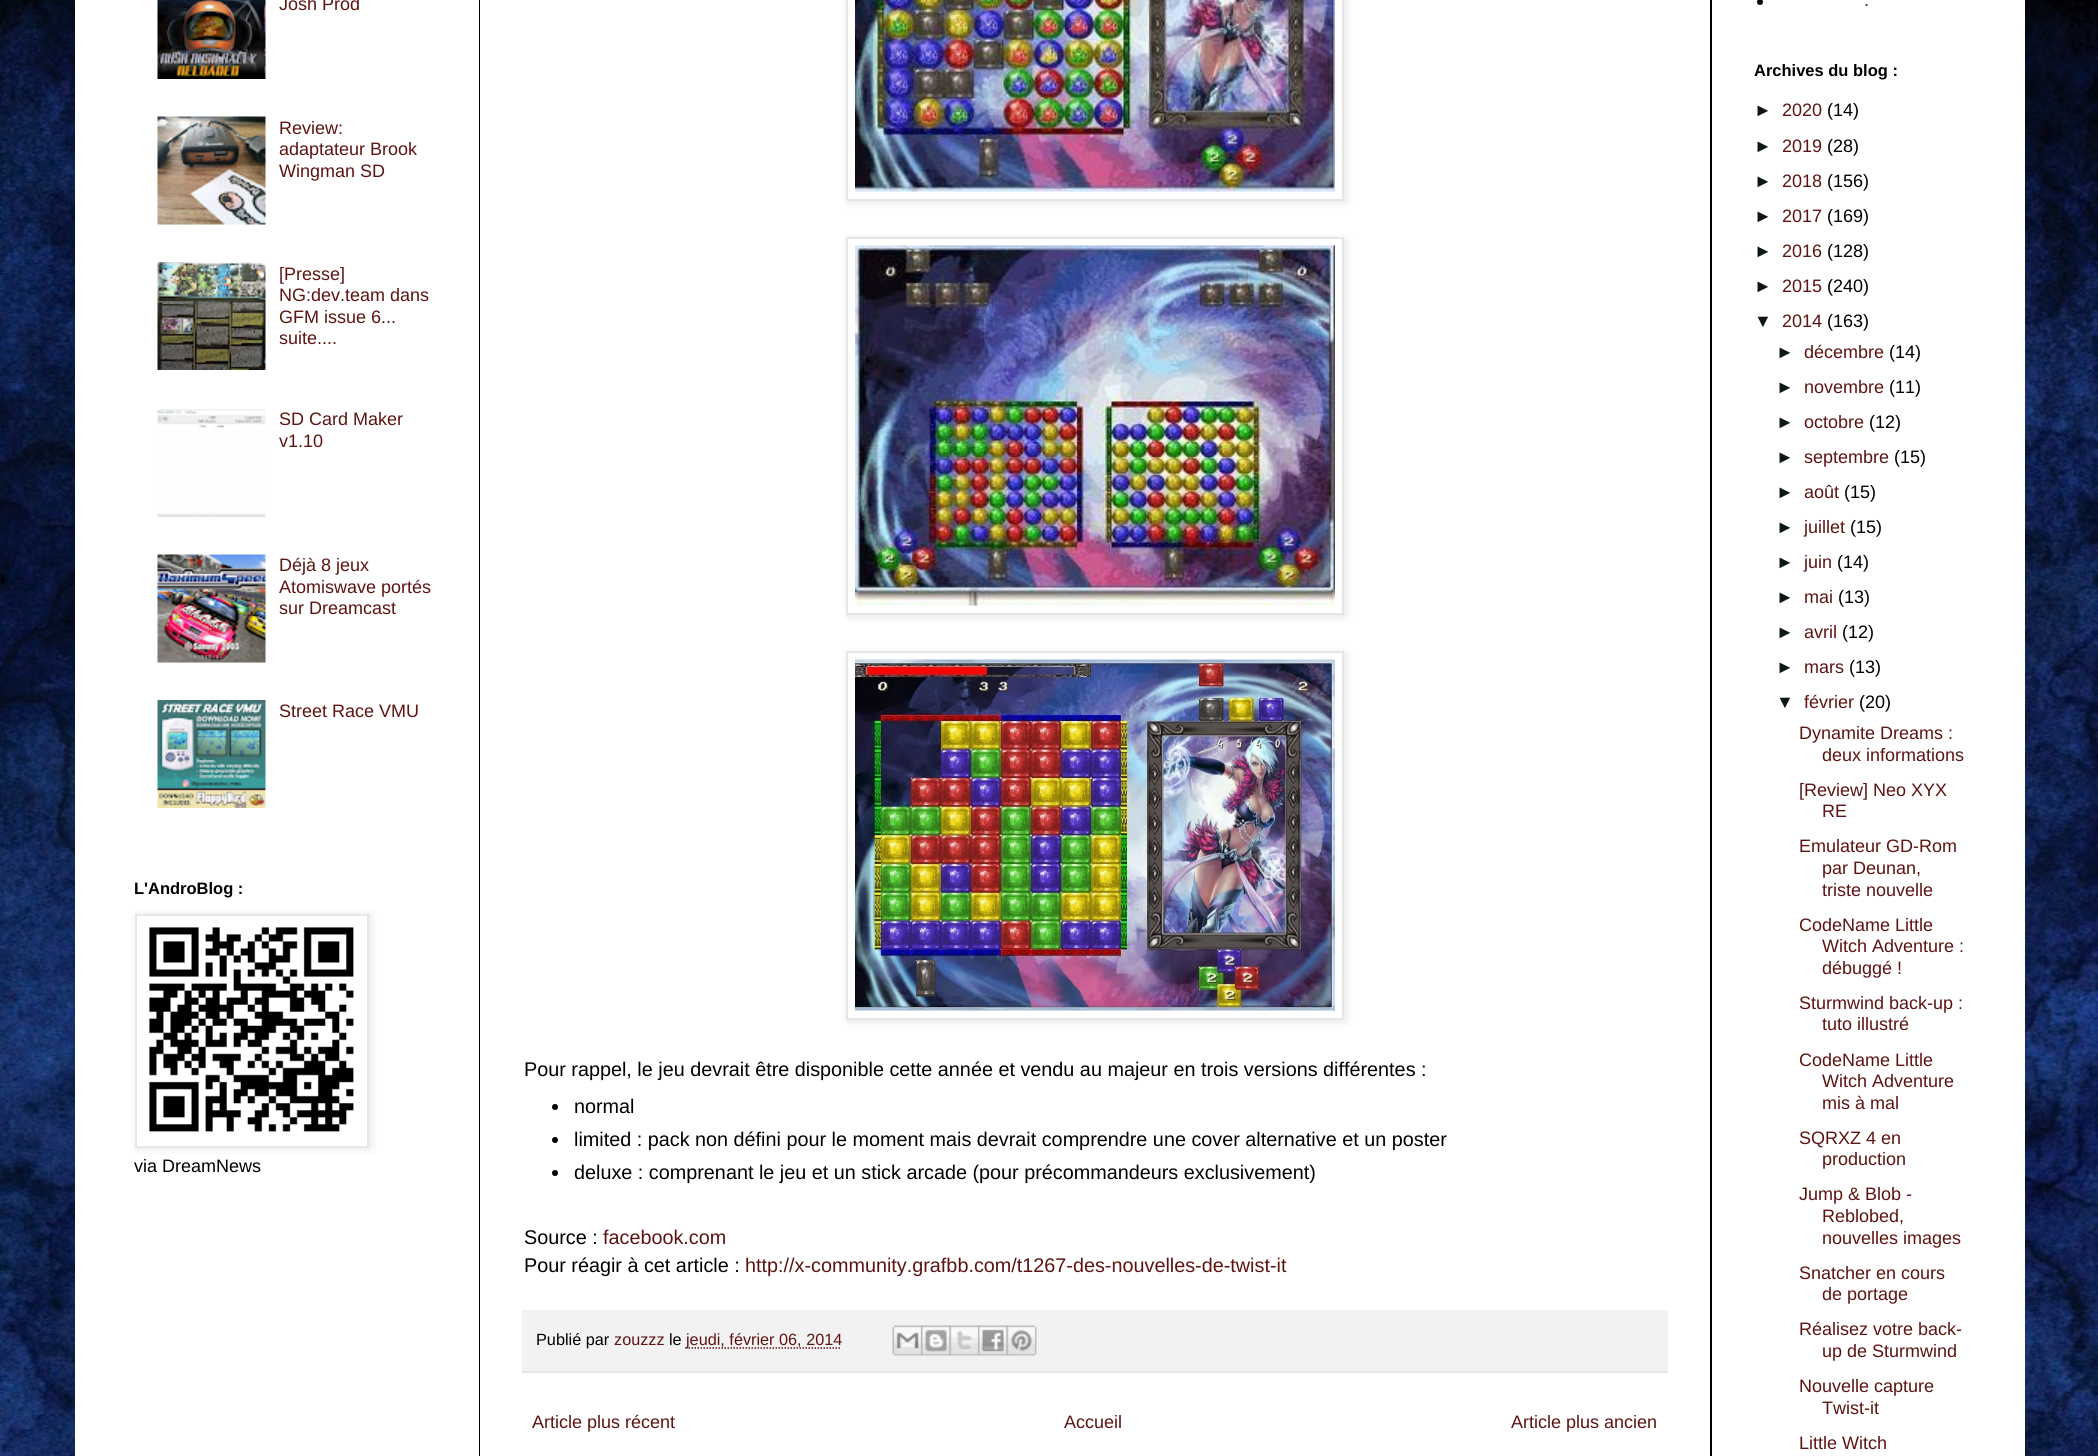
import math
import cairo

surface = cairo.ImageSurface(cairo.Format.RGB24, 2098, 1456)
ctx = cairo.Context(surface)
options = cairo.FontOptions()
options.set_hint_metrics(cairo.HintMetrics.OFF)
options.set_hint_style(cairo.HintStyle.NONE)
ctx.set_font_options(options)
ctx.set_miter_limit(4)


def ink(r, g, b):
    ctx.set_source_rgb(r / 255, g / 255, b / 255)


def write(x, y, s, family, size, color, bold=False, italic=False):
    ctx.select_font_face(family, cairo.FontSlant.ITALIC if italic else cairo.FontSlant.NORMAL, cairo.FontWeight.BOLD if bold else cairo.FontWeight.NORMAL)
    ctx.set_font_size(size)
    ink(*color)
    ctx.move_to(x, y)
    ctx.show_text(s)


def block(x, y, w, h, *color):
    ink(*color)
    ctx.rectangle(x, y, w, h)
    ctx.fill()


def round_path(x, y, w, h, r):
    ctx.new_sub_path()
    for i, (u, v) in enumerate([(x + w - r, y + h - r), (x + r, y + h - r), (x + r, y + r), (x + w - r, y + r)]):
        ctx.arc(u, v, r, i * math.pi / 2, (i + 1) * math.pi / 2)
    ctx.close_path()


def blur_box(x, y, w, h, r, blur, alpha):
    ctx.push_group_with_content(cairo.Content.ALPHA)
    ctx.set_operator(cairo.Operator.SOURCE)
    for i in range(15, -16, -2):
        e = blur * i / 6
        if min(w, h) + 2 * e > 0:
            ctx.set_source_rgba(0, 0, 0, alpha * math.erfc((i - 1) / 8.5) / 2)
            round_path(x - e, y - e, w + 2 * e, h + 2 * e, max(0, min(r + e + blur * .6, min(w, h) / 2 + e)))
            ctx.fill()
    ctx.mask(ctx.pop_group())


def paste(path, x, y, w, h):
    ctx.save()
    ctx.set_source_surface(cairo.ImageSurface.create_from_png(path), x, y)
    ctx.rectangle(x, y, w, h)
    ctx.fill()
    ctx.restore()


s1 = dict(family="Liberation Sans", size=18, color=(93, 20, 17))
s2 = dict(family="Liberation Sans", size=16.5, color=(0, 0, 0), bold=True)
s3 = dict(family="Liberation Sans", size=18, color=(0, 0, 0))
s4 = dict(family="Liberation Sans", size=19.8, color=(0, 0, 0))
s5 = dict(family="Liberation Sans", size=19.8, color=(93, 20, 17))
s6 = dict(family="Liberation Sans", size=16.25, color=(0, 0, 0))
s7 = dict(family="Liberation Sans", size=16.25, color=(93, 20, 17))
s8 = dict(family="Liberation Sans", size=18, color=(13, 23, 23))

ink(255, 255, 255)
ctx.paint()
paste("pic1.png", 0, 0, 2098, 1456)
ink(0, 0, 0)
blur_box(75, -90, 1950, 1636, 0, 30, 0.15)
block(75, 0, 1950, 1456, 255, 255, 255)
paste("pic2.png", 157, 0, 109, 79)
write(279, 10, "Josh Prod", **s1)
paste("pic3.png", 157, 116, 109, 109)
write(279, 134, "Review:", **s1)
write(279, 155, "adaptateur Brook", **s1)
write(279, 177, "Wingman SD", **s1)
paste("pic4.png", 157, 262, 109, 108)
write(279, 280, "[Presse]", **s1)
write(279, 301, "NG:dev.team dans", **s1)
write(279, 323, "GFM issue 6...", **s1)
write(279, 344, "suite....", **s1)
paste("pic5.png", 157, 409, 109, 108)
write(279, 425, "SD Card Maker", **s1)
write(279, 447, "v1.10", **s1)
paste("pic6.png", 157, 554, 109, 109)
write(279, 571, "Déjà 8 jeux", **s1)
write(279, 593, "Atomiswave portés", **s1)
write(279, 614, "sur Dreamcast", **s1)
paste("pic7.png", 157, 700, 109, 108)
write(279, 717, "Street Race VMU", **s1)
write(134, 894, "L'AndroBlog :", **s2)
ink(0, 0, 0)
blur_box(137, 915, 234, 234, 0, 4, 0.1)
ink(255, 255, 255)
ctx.rectangle(136, 915, 232, 232)
ctx.fill_preserve()
ink(230, 230, 230)
ctx.stroke()
paste("pic8.png", 149, 927, 205, 205)
write(134, 1172, "via DreamNews", **s3)
ctx.save()
ctx.set_fill_rule(cairo.FillRule.EVEN_ODD)
ctx.new_path()
ctx.move_to(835, 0)
ctx.line_to(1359, 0)
ctx.line_to(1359, 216)
ctx.line_to(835, 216)
ctx.close_path()
ctx.move_to(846, -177)
ctx.line_to(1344, -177)
ctx.line_to(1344, 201)
ctx.line_to(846, 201)
ctx.close_path()
ctx.clip()
ink(0, 0, 0)
blur_box(848, -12, 498, 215, 0, 4, 0.1)
ctx.restore()
ctx.rectangle(847, -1, 496, 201)
ink(230, 230, 230)
ctx.stroke()
paste("pic9.png", 855, 0, 480, 192)
ctx.save()
ctx.set_fill_rule(cairo.FillRule.EVEN_ODD)
ctx.new_path()
ctx.move_to(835, 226)
ctx.line_to(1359, 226)
ctx.line_to(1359, 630)
ctx.line_to(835, 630)
ctx.close_path()
ctx.move_to(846, 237)
ctx.line_to(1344, 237)
ctx.line_to(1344, 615)
ctx.line_to(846, 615)
ctx.close_path()
ctx.clip()
ink(0, 0, 0)
blur_box(848, 239, 498, 378, 0, 4, 0.1)
ctx.restore()
ctx.rectangle(847, 238, 496, 376)
ctx.stroke()
paste("pic10.png", 855, 245, 480, 361)
ctx.save()
ctx.set_fill_rule(cairo.FillRule.EVEN_ODD)
ctx.new_path()
ctx.move_to(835, 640)
ctx.line_to(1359, 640)
ctx.line_to(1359, 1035)
ctx.line_to(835, 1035)
ctx.close_path()
ctx.move_to(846, 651)
ctx.line_to(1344, 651)
ctx.line_to(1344, 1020)
ctx.line_to(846, 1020)
ctx.close_path()
ctx.clip()
ink(0, 0, 0)
blur_box(848, 653, 498, 369, 0, 4, 0.1)
ctx.restore()
ctx.rectangle(847, 652, 496, 367)
ctx.stroke()
paste("pic11.png", 855, 659, 480, 352)
write(524, 1076, "Pour rappel, le jeu devrait être disponible cette année et vendu au majeur en trois versions différentes :", **s4)
ctx.new_path()
ctx.arc(555, 1107, 3, 0, 2 * math.pi)
ctx.fill()
write(574, 1113, "normal", **s4)
ctx.new_path()
ctx.arc(555, 1140, 3, 0, 2 * math.pi)
ctx.fill()
write(574, 1146, "limited : pack non défini pour le moment mais devrait comprendre une cover alternative et un poster", **s4)
ctx.new_path()
ctx.arc(555, 1173, 3, 0, 2 * math.pi)
ctx.fill()
write(574, 1179, "deluxe : comprenant le jeu et un stick arcade (pour précommandeurs exclusivement)", **s4)
write(524, 1244, "Source :", **s4)
write(603, 1244, "facebook.com", **s5)
write(524, 1272, "Pour réagir à cet article :", **s4)
write(745, 1272, "http://x-community.grafbb.com/t1267-des-nouvelles-de-twist-it", **s5)
block(522, 1310, 1146, 61, 242, 242, 242)
block(522, 1371, 1146, 2, 230, 230, 230)
write(536, 1345, "Publié par", **s6)
write(614, 1345, "zouzzz", **s7)
write(669, 1345, "le", **s6)
ctx.new_path()
ctx.move_to(685.5, 1348)
ctx.line_to(841.5, 1348)
ink(93, 20, 17)
ctx.set_line_width(1.5)
ctx.set_dash([1.5, 1.5])
ctx.stroke()
write(686, 1345, "jeudi, février 06, 2014", **s7)
paste("pic12.png", 892, 1325, 31, 31)
paste("pic13.png", 921, 1325, 30, 31)
paste("pic14.png", 949, 1325, 31, 31)
paste("pic15.png", 978, 1325, 30, 31)
paste("pic16.png", 1006, 1325, 31, 31)
write(532, 1428, "Article plus récent", **s1)
write(1064, 1428, "Accueil", **s1)
write(1511, 1428, "Article plus ancien", **s1)
ink(0, 0, 0)
ctx.new_path()
ctx.arc(1760, 2, 3, 0, 2 * math.pi)
ctx.fill()
write(1864, 6, ".", **s1)
write(1754, 76, "Archives du blog :", **s2)
write(1754, 116, "►", **s8)
write(1782, 116, "2020", **s1)
write(1827, 116, "(14)", **s3)
write(1754, 152, "►", **s8)
write(1782, 152, "2019", **s1)
write(1827, 152, "(28)", **s3)
write(1754, 187, "►", **s8)
write(1782, 187, "2018", **s1)
write(1827, 187, "(156)", **s3)
write(1754, 222, "►", **s8)
write(1782, 222, "2017", **s1)
write(1827, 222, "(169)", **s3)
write(1754, 257, "►", **s8)
write(1782, 257, "2016", **s1)
write(1827, 257, "(128)", **s3)
write(1754, 292, "►", **s8)
write(1782, 292, "2015", **s1)
write(1827, 292, "(240)", **s3)
write(1754, 327, "▼", **s8)
write(1782, 327, "2014", **s1)
write(1827, 327, "(163)", **s3)
write(1776, 358, "►", **s8)
write(1804, 358, "décembre", **s1)
write(1889, 358, "(14)", **s3)
write(1776, 393, "►", **s8)
write(1804, 393, "novembre", **s1)
write(1889, 393, "(11)", **s3)
write(1776, 428, "►", **s8)
write(1804, 428, "octobre", **s1)
write(1869, 428, "(12)", **s3)
write(1776, 463, "►", **s8)
write(1804, 463, "septembre", **s1)
write(1894, 463, "(15)", **s3)
write(1776, 498, "►", **s8)
write(1804, 498, "août", **s1)
write(1844, 498, "(15)", **s3)
write(1776, 533, "►", **s8)
write(1804, 533, "juillet", **s1)
write(1850, 533, "(15)", **s3)
write(1776, 568, "►", **s8)
write(1804, 568, "juin", **s1)
write(1837, 568, "(14)", **s3)
write(1776, 603, "►", **s8)
write(1804, 603, "mai", **s1)
write(1838, 603, "(13)", **s3)
write(1776, 638, "►", **s8)
write(1804, 638, "avril", **s1)
write(1842, 638, "(12)", **s3)
write(1776, 673, "►", **s8)
write(1804, 673, "mars", **s1)
write(1849, 673, "(13)", **s3)
write(1776, 708, "▼", **s8)
write(1804, 708, "février", **s1)
write(1859, 708, "(20)", **s3)
write(1799, 739, "Dynamite Dreams :", **s1)
write(1822, 761, "deux informations", **s1)
write(1799, 796, "[Review] Neo XYX", **s1)
write(1822, 817, "RE", **s1)
write(1799, 852, "Emulateur GD-Rom", **s1)
write(1822, 874, "par Deunan,", **s1)
write(1822, 896, "triste nouvelle", **s1)
write(1799, 931, "CodeName Little", **s1)
write(1822, 952, "Witch Adventure :", **s1)
write(1822, 974, "débuggé !", **s1)
write(1799, 1009, "Sturmwind back-up :", **s1)
write(1822, 1030, "tuto illustré", **s1)
write(1799, 1066, "CodeName Little", **s1)
write(1822, 1087, "Witch Adventure", **s1)
write(1822, 1109, "mis à mal", **s1)
write(1799, 1144, "SQRXZ 4 en", **s1)
write(1822, 1165, "production", **s1)
write(1799, 1200, "Jump & Blob -", **s1)
write(1822, 1222, "Reblobed,", **s1)
write(1822, 1244, "nouvelles images", **s1)
write(1799, 1279, "Snatcher en cours", **s1)
write(1822, 1300, "de portage", **s1)
write(1799, 1335, "Réalisez votre back-", **s1)
write(1822, 1357, "up de Sturmwind", **s1)
write(1799, 1392, "Nouvelle capture", **s1)
write(1822, 1414, "Twist-it", **s1)
write(1799, 1449, "Little Witch", **s1)
block(479, 0, 1, 1456, 0, 0, 0)
block(1710, 0, 2, 1456, 0, 0, 0)
surface.write_to_png("screenshot.png")
